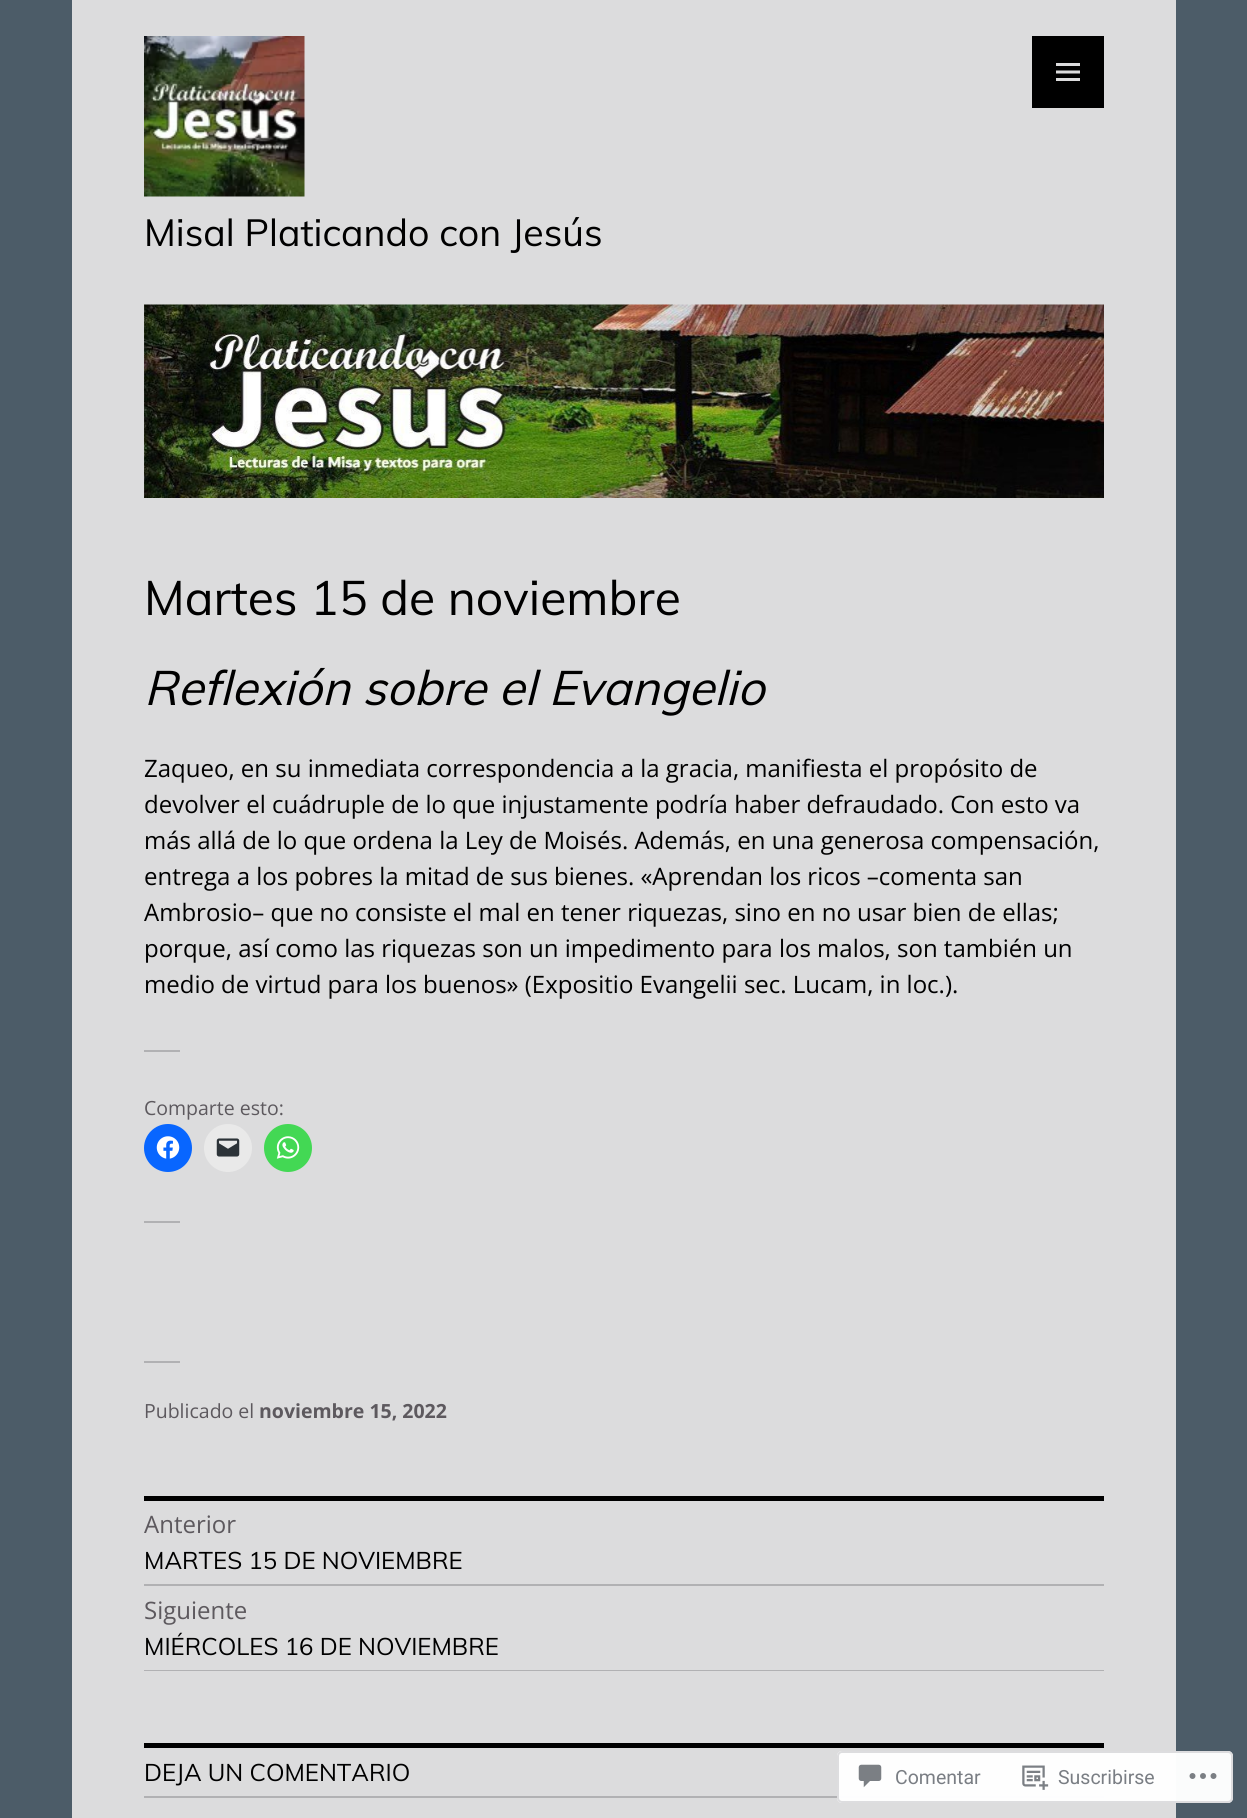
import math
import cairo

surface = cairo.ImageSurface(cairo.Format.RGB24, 1247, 1818)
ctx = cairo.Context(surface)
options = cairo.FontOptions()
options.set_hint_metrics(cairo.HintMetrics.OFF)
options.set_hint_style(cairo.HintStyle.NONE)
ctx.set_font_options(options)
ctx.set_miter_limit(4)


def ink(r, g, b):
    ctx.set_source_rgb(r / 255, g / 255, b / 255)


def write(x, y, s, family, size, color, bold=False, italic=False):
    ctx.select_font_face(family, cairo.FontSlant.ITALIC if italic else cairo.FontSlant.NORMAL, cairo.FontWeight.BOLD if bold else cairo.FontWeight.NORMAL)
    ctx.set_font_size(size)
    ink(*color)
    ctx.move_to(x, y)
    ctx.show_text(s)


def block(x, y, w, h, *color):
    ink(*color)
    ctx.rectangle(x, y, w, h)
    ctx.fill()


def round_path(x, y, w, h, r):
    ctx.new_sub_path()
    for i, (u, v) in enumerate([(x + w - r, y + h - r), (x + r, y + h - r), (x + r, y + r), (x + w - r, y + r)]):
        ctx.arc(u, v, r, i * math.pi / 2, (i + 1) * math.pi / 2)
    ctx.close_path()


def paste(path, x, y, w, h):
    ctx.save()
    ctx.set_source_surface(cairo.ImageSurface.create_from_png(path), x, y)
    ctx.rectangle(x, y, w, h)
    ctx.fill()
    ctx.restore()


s1 = dict(family="Muli", size=37.5, color=(0, 0, 0))
s2 = dict(family="Muli", size=48, color=(0, 0, 0))
s3 = dict(family="Muli", size=48, color=(0, 0, 0), italic=True)
s4 = dict(family="Open Sans", size=24, color=(0, 0, 0))
s5 = dict(family="Open Sans", size=19.5, color=(93, 89, 94))
s6 = dict(family="Open Sans", size=19.5, color=(93, 89, 94), bold=True)
s7 = dict(family="Open Sans", size=24, color=(93, 89, 94))
s8 = dict(family="Muli", size=24, color=(0, 0, 0))
s9 = dict(family="Roboto", size=19.5, color=(122, 126, 132))

ink(76, 92, 104)
ctx.paint()
block(72, 0, 1104, 1818, 220, 220, 221)
block(1032, 36, 72, 72, 0, 0, 0)
paste("pic1.png", 1056, 63, 24, 18)
paste("pic2.png", 144, 36, 161, 161)
write(144, 246, "Misal Platicando con Jesús", **s1)
paste("pic3.png", 144, 304, 960, 194)
write(144, 615, "Martes 15 de noviembre", **s2)
write(144, 705, "Reflexión sobre el Evangelio", **s3)
write(144, 777, "Zaqueo, en su inmediata correspondencia a la gracia, manifiesta el propósito de", **s4)
write(144, 813, "devolver el cuádruple de lo que injustamente podría haber defraudado. Con esto va", **s4)
write(144, 849, "más allá de lo que ordena la Ley de Moisés. Además, en una generosa compensación,", **s4)
write(144, 885, "entrega a los pobres la mitad de sus bienes. «Aprendan los ricos –comenta san", **s4)
write(144, 921, "Ambrosio– que no consiste el mal en tener riquezas, sino en no usar bien de ellas;", **s4)
write(144, 957, "porque, así como las riquezas son un impedimento para los malos, son también un", **s4)
write(144, 993, "medio de virtud para los buenos» (Expositio Evangelii sec. Lucam, in loc.).", **s4)
block(144, 1050, 36, 2, 177, 177, 179)
write(144, 1115, "Comparte esto:", **s5)
ink(8, 102, 255)
ctx.new_path()
ctx.arc(168, 1148, 24, 0, 2 * math.pi)
ctx.fill()
paste("pic4.png", 156, 1136, 24, 23)
ink(233, 233, 233)
ctx.arc(228, 1148, 24, 0, 2 * math.pi)
ctx.fill()
paste("pic5.png", 216, 1138, 24, 19)
ink(67, 216, 84)
ctx.arc(288, 1148, 24, 0, 2 * math.pi)
ctx.fill()
paste("pic6.png", 276, 1136, 24, 23)
block(144, 1221, 36, 2, 177, 177, 179)
block(144, 1361, 36, 2, 177, 177, 179)
write(144, 1418, "Publicado el", **s5)
write(259, 1418, "noviembre 15, 2022", **s6)
block(144, 1496, 960, 5, 0, 0, 0)
block(144, 1584, 960, 2, 177, 177, 179)
write(144, 1533, "Anterior", **s7)
write(144, 1569, "MARTES 15 DE NOVIEMBRE", **s8)
block(144, 1670, 960, 1, 177, 177, 179)
write(144, 1619, "Siguiente", **s7)
write(144, 1655, "MIÉRCOLES 16 DE NOVIEMBRE", **s8)
block(144, 1743, 960, 5, 0, 0, 0)
block(144, 1796, 960, 2, 177, 177, 179)
write(144, 1781, "DEJA UN COMENTARIO", **s8)
ctx.set_source_rgba(1, 1, 1, 0.98)
round_path(837, 1751, 396, 52, 5)
ctx.fill()
round_path(838, 1752, 394, 50, 4)
ctx.set_source_rgba(0.863, 0.863, 0.871, 0.98)
ctx.stroke()
paste("pic7.png", 858, 1764, 24, 24)
write(895, 1784, "Comentar", **s9)
paste("pic8.png", 1022, 1765, 27, 25)
write(1058, 1784, "Suscribirse", **s9)
paste("pic9.png", 1189, 1773, 28, 6)
surface.write_to_png("screenshot.png")
